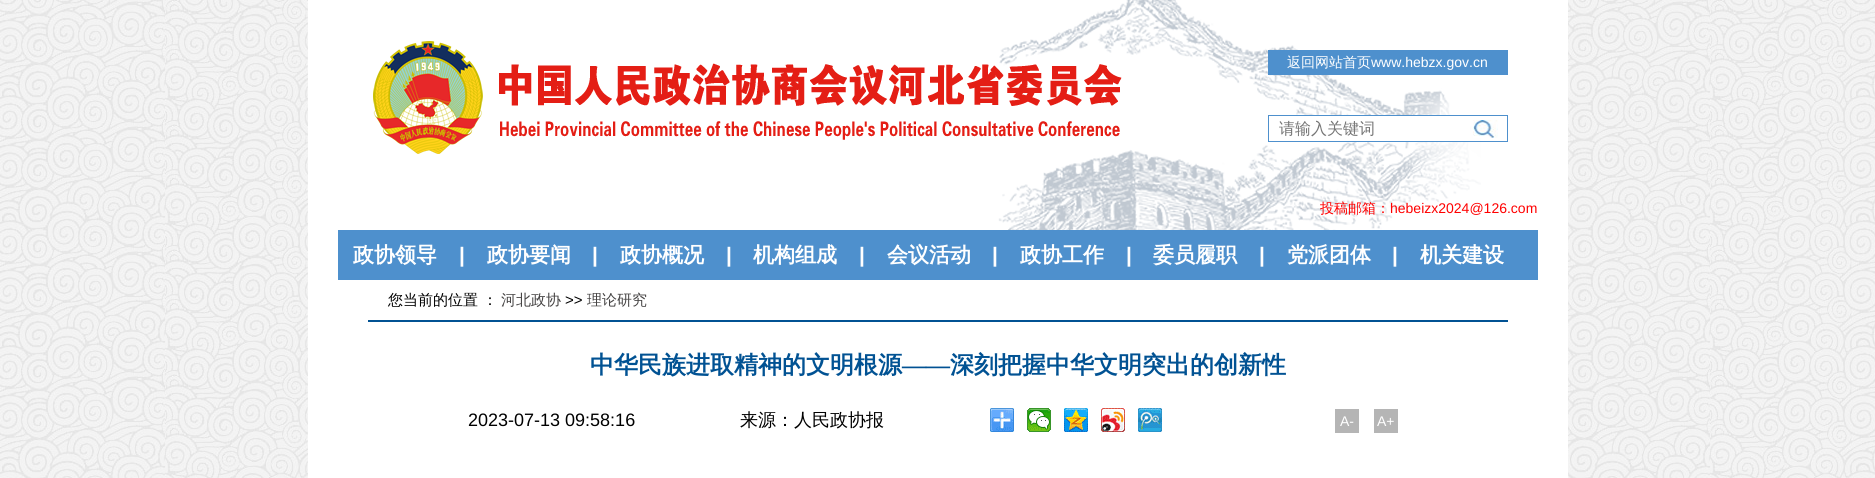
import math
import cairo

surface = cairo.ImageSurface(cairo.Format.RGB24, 1875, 478)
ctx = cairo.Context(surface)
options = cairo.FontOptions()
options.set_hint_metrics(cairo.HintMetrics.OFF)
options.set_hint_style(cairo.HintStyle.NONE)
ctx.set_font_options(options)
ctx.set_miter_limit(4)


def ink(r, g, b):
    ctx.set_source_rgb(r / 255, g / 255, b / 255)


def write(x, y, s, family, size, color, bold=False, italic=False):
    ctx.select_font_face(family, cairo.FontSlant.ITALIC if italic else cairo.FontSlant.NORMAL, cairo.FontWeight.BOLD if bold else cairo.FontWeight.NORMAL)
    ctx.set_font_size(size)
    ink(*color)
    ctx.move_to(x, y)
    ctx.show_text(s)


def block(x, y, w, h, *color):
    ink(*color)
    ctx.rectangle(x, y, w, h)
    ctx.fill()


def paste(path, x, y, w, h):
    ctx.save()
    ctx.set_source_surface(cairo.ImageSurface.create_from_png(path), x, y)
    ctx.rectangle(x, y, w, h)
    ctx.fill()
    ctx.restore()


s1 = dict(family="WenQuanYi Zen Hei Medium", size=14, color=(255, 255, 255))
s2 = dict(family="Liberation Sans", size=14, color=(255, 255, 255))
s3 = dict(family="WenQuanYi Zen Hei Medium", size=16, color=(117, 117, 117))
s4 = dict(family="WenQuanYi Zen Hei Medium", size=14, color=(255, 0, 0))
s5 = dict(family="Liberation Sans", size=14, color=(255, 0, 0))
s6 = dict(family="WenQuanYi Zen Hei", size=21, color=(255, 255, 255), bold=True)
s7 = dict(family="Liberation Sans", size=21, color=(255, 255, 255), bold=True)
s8 = dict(family="WenQuanYi Zen Hei Medium", size=15, color=(0, 0, 0))
s9 = dict(family="WenQuanYi Zen Hei Medium", size=15, color=(69, 67, 67))
s10 = dict(family="Liberation Sans", size=15, color=(0, 0, 0))
s11 = dict(family="WenQuanYi Zen Hei", size=24, color=(1, 82, 147), bold=True)
s12 = dict(family="Liberation Serif", size=24, color=(1, 82, 147), bold=True)
s13 = dict(family="Liberation Sans", size=18, color=(0, 0, 0))
s14 = dict(family="WenQuanYi Zen Hei Medium", size=18, color=(0, 0, 0))

ink(255, 255, 255)
ctx.paint()
paste("pic1.png", 0, 0, 1875, 478)
block(308, 0, 1260, 478, 255, 255, 255)
paste("pic2.png", 998, 0, 483, 230)
paste("pic3.png", 373, 41, 749, 113)
block(1268, 50, 240, 25, 78, 144, 205)
write(1287, 67, "返回网站首页", **s1)
write(1371, 67, "www.hebzx.gov.cn", **s2)
block(1301, 116, 169, 25, 255, 255, 255)
ctx.rectangle(1268.5, 115.5, 239, 26)
ink(78, 144, 205)
ctx.set_line_width(1)
ctx.stroke()
write(1279, 134, "请输入关键词", **s3)
paste("pic4.png", 1473, 120, 25, 18)
write(1320, 213, "投稿邮箱：", **s4)
write(1390, 213, "hebeizx2024@126.com", **s5)
block(338, 230, 1200, 50, 78, 144, 205)
write(353, 262, "政协领导", **s6)
write(459, 262, "|", **s7)
write(487, 262, "政协要闻", **s6)
write(592, 262, "|", **s7)
write(620, 262, "政协概况", **s6)
write(726, 262, "|", **s7)
write(753, 262, "机构组成", **s6)
write(859, 262, "|", **s7)
write(887, 262, "会议活动", **s6)
write(992, 262, "|", **s7)
write(1020, 262, "政协工作", **s6)
write(1126, 262, "|", **s7)
write(1153, 262, "委员履职", **s6)
write(1259, 262, "|", **s7)
write(1287, 262, "党派团体", **s6)
write(1392, 262, "|", **s7)
write(1420, 262, "机关建设", **s6)
write(388, 305, "您当前的位置 ：", **s8)
write(501, 305, "河北政协", **s9)
write(565, 305, ">>", **s10)
write(587, 305, "理论研究", **s9)
block(368, 320, 1140, 2, 1, 82, 147)
write(590, 373, "中华民族进取精神的文明根源", **s11)
write(902, 373, "——", **s12)
write(950, 373, "深刻把握中华文明突出的创新性", **s11)
write(468, 426, "2023-07-13 09:58:16", **s13)
write(740, 426, "来源：人民政协报", **s14)
paste("pic5.png", 990, 408, 24, 24)
paste("pic6.png", 1027, 408, 24, 24)
paste("pic7.png", 1064, 408, 24, 24)
paste("pic8.png", 1101, 408, 24, 24)
paste("pic9.png", 1138, 408, 24, 24)
block(1335, 409, 24, 24, 181, 181, 181)
write(1340, 426, "A-", **s2)
block(1374, 409, 24, 24, 181, 181, 181)
write(1377, 426, "A+", **s2)
surface.write_to_png("screenshot.png")
